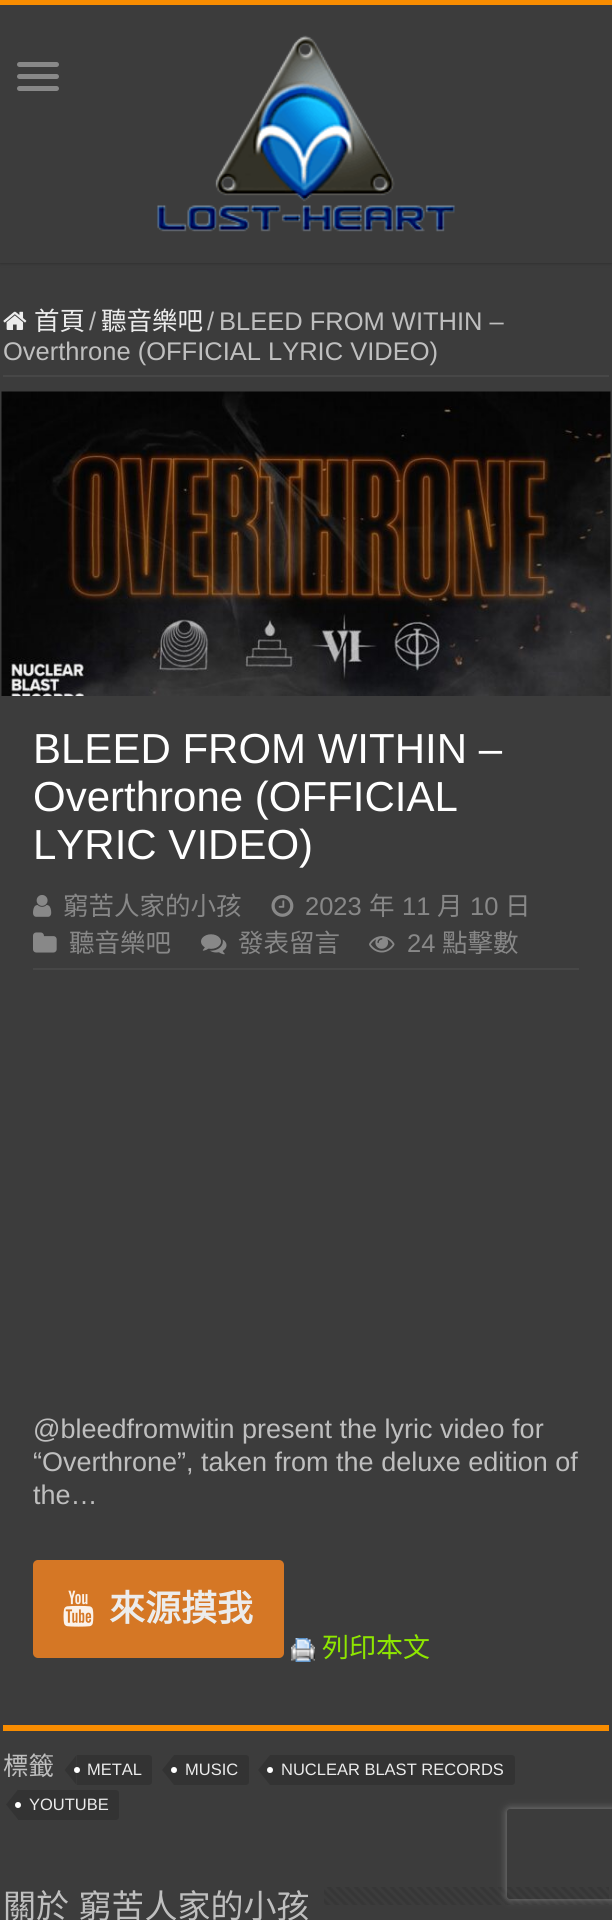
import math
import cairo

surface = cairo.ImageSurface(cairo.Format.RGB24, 612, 1920)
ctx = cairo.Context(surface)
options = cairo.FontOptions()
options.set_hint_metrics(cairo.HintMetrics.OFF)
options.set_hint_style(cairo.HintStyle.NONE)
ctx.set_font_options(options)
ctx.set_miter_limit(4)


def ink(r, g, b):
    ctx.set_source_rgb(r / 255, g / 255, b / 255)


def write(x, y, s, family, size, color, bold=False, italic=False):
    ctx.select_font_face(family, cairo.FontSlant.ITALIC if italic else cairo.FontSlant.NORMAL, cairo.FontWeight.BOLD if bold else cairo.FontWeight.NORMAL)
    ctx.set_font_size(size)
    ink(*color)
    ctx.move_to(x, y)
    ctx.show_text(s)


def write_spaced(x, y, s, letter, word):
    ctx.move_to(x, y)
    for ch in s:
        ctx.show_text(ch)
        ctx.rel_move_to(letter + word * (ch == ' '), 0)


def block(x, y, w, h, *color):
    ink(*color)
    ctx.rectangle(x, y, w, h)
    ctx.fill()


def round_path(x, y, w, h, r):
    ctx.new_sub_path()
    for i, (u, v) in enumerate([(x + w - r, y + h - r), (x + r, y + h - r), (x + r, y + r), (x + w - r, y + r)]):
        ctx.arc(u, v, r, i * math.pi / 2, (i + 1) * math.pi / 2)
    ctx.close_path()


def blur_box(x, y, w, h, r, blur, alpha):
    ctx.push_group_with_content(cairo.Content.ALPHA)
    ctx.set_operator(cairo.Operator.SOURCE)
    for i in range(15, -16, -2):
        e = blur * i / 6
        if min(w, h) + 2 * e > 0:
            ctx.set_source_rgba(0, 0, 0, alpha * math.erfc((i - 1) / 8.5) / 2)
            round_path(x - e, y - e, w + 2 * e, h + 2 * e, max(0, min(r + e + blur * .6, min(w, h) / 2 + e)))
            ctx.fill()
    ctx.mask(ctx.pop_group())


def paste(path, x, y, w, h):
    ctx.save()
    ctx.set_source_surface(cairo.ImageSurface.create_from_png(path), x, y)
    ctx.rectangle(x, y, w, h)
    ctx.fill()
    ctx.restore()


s1 = dict(family="Noto Sans CJK TC", size=25.5, color=(236, 236, 236))
s2 = dict(family="Liberation Sans", size=25.5, color=(191, 191, 191))
s3 = dict(family="Liberation Sans", size=42, color=(255, 255, 255))
s4 = dict(family="Noto Sans CJK TC", size=25.5, color=(136, 136, 136))
s5 = dict(family="Liberation Sans", size=25.5, color=(136, 136, 136))
s6 = dict(family="Liberation Sans", size=27, color=(191, 191, 191))
s7 = dict(family="Noto Sans CJK TC", size=36, color=(236, 236, 236), bold=True)
s8 = dict(family="Noto Sans CJK TC", size=27, color=(142, 230, 0))
s9 = dict(family="Noto Sans CJK TC", size=25.5, color=(191, 191, 191))
s10 = dict(family="Liberation Sans", size=16.5, color=(236, 236, 236))

ink(60, 60, 60)
ctx.paint()
ink(42, 42, 42)
blur_box(0, 0, 612, 263, 0, 2, 1)
block(0, 5, 612, 258, 60, 60, 60)
block(0, 0, 612, 5, 248, 140, 0)
ink(136, 136, 136)
round_path(17, 62, 42, 5, 2.5)
ctx.fill()
round_path(17, 74, 42, 5, 2.5)
ctx.fill()
round_path(17, 86, 42, 5, 2.5)
ctx.fill()
paste("pic1.png", 157, 35, 298, 197)
block(3, 375, 606, 2, 71, 71, 71)
paste("pic2.png", 3, 311, 24, 19)
write(34, 330, "首頁", **s1)
write(89, 330, "/", **s2)
write(101, 330, "聽音樂吧", **s1)
write(207, 330, "/", **s2)
write(219, 330, "BLEED FROM WITHIN –", **s2)
write(3, 360, "Overthrone (OFFICIAL LYRIC VIDEO)", **s2)
block(3, 1725, 606, 6, 248, 140, 0)
paste("pic3.png", 1, 391, 610, 305)
write(33, 763, "BLEED FROM WITHIN –", **s3)
write(33, 811, "Overthrone (OFFICIAL", **s3)
write(33, 859, "LYRIC VIDEO)", **s3)
block(33, 968, 546, 2, 71, 71, 71)
paste("pic4.png", 33, 895, 19, 22)
write(63, 915, "窮苦人家的小孩", **s4)
paste("pic5.png", 271, 895, 23, 22)
write(305, 915, "2023", **s5)
write(369, 915, "年", **s4)
write(402, 915, "11", **s5)
write(437, 915, "月", **s4)
write(470, 915, "10", **s5)
write(505, 915, "日", **s4)
paste("pic6.png", 33, 932, 24, 21)
write(69, 952, "聽音樂吧", **s4)
paste("pic7.png", 201, 934, 26, 21)
write(238, 952, "發表留言", **s4)
paste("pic8.png", 369, 936, 26, 17)
write(407, 952, "24", **s5)
write(442, 952, "點擊數", **s4)
write(33, 1438, "@bleedfromwitin present the lyric video for", **s6)
write(33, 1471, "“Overthrone”, taken from the deluxe edition of", **s6)
write(33, 1504, "the…", **s6)
ink(213, 119, 37)
round_path(33, 1560, 251, 98, 5)
ctx.fill()
paste("pic9.png", 63, 1590, 31, 37)
write(109, 1621, "來源摸我", **s7)
paste("pic10.png", 291, 1638, 24, 24)
write(322, 1657, "列印本文", **s8)
write(3, 1775, "標籤", **s9)
ink(51, 51, 51)
ctx.new_path()
ctx.move_to(77, 1755)
ctx.line_to(149, 1755)
ctx.curve_to(150.5, 1755, 152, 1756.5, 152, 1758)
ctx.line_to(152, 1782)
ctx.curve_to(152, 1783.5, 150.5, 1785, 149, 1785)
ctx.line_to(77, 1785)
ctx.close_path()
ctx.fill()
ctx.new_path()
ctx.move_to(76.5, 1755)
ctx.line_to(76.5, 1785)
ctx.line_to(64.5, 1770)
ctx.close_path()
ctx.fill()
write(87, 1775, "METAL", **s10)
ink(255, 255, 255)
ctx.new_path()
ctx.arc(77, 1770, 3, 0, 2 * math.pi)
ctx.fill()
ink(51, 51, 51)
ctx.new_path()
ctx.move_to(174, 1755)
ctx.line_to(246, 1755)
ctx.curve_to(247.5, 1755, 249, 1756.5, 249, 1758)
ctx.line_to(249, 1782)
ctx.curve_to(249, 1783.5, 247.5, 1785, 246, 1785)
ctx.line_to(174, 1785)
ctx.close_path()
ctx.fill()
ctx.new_path()
ctx.move_to(174, 1755)
ctx.line_to(174, 1785)
ctx.line_to(162, 1770)
ctx.close_path()
ctx.fill()
write(185, 1775, "MUSIC", **s10)
ink(255, 255, 255)
ctx.new_path()
ctx.arc(174, 1770, 3, 0, 2 * math.pi)
ctx.fill()
ink(51, 51, 51)
ctx.new_path()
ctx.move_to(270, 1755)
ctx.line_to(512, 1755)
ctx.curve_to(513.5, 1755, 515, 1756.5, 515, 1758)
ctx.line_to(515, 1782)
ctx.curve_to(515, 1783.5, 513.5, 1785, 512, 1785)
ctx.line_to(270, 1785)
ctx.close_path()
ctx.fill()
ctx.new_path()
ctx.move_to(270, 1755)
ctx.line_to(270, 1785)
ctx.line_to(258, 1770)
ctx.close_path()
ctx.fill()
write(281, 1775, "NUCLEAR BLAST RECORDS", **s10)
ink(255, 255, 255)
ctx.new_path()
ctx.arc(270, 1770, 3, 0, 2 * math.pi)
ctx.fill()
ink(51, 51, 51)
ctx.new_path()
ctx.move_to(18, 1790)
ctx.line_to(116, 1790)
ctx.curve_to(117.5, 1790, 119, 1791.5, 119, 1793)
ctx.line_to(119, 1817)
ctx.curve_to(119, 1818.5, 117.5, 1820, 116, 1820)
ctx.line_to(18, 1820)
ctx.close_path()
ctx.fill()
ctx.new_path()
ctx.move_to(18, 1789.5)
ctx.line_to(18, 1819.5)
ctx.line_to(6, 1804.5)
ctx.close_path()
ctx.fill()
write(29, 1810, "YOUTUBE", **s10)
ink(255, 255, 255)
ctx.new_path()
ctx.arc(18, 1805, 3, 0, 2 * math.pi)
ctx.fill()
ctx.select_font_face("Noto Sans CJK TC")
ctx.set_font_size(33)
ink(191, 191, 191)
write_spaced(3, 1918, "關於 窮苦人家的小孩", 0, 2)
paste("pic11.png", 324, 1887, 285, 18)
ctx.save()
ctx.set_fill_rule(cairo.FillRule.EVEN_ODD)
ctx.new_path()
ctx.move_to(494, 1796)
ctx.line_to(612, 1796)
ctx.line_to(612, 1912)
ctx.line_to(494, 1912)
ctx.close_path()
ctx.move_to(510, 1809)
ctx.line_to(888, 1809)
ctx.curve_to(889.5, 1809, 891, 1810.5, 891, 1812)
ctx.line_to(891, 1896)
ctx.curve_to(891, 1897.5, 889.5, 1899, 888, 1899)
ctx.line_to(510, 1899)
ctx.curve_to(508.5, 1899, 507, 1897.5, 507, 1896)
ctx.line_to(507, 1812)
ctx.curve_to(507, 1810.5, 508.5, 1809, 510, 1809)
ctx.close_path()
ctx.clip()
ink(128, 128, 128)
blur_box(507, 1809, 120, 90, 3, 4, 1)
ctx.restore()
surface.write_to_png("screenshot.png")
